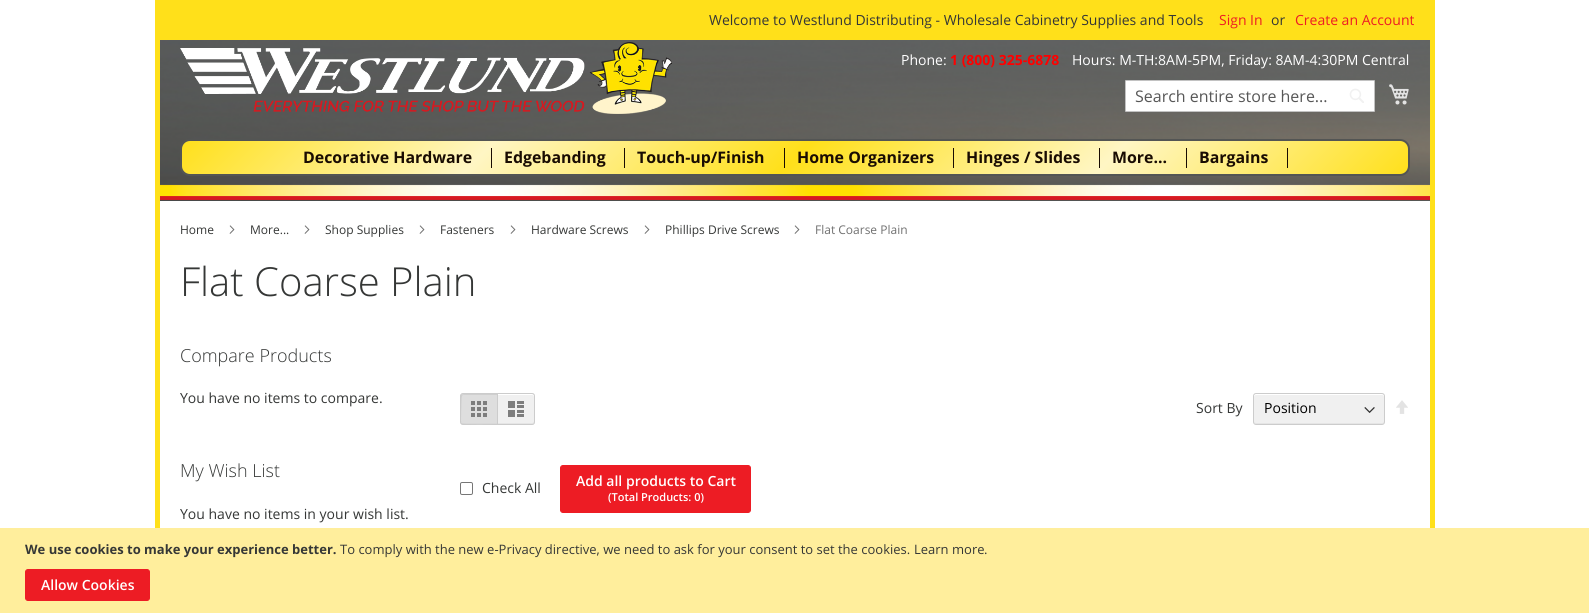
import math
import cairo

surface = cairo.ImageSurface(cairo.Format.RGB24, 1589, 613)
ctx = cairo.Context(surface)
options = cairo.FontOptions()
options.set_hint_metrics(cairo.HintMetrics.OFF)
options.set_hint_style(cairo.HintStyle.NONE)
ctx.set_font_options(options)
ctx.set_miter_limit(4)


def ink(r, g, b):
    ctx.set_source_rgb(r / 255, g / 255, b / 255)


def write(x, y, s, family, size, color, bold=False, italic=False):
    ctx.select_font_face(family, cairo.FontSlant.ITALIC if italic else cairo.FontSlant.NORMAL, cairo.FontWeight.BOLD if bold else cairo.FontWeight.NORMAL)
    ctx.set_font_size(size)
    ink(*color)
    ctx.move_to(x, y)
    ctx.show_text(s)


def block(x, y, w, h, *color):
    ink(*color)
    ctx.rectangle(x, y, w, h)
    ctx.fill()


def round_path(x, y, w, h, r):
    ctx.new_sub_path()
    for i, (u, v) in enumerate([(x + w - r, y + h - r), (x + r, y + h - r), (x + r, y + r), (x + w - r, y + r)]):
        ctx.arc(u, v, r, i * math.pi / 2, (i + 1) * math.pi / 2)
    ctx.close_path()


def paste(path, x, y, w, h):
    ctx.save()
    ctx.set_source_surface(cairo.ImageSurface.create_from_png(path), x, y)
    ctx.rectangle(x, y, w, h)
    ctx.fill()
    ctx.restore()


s1 = dict(family="Open Sans", size=14, color=(53, 55, 54))
s2 = dict(family="Open Sans", size=14, color=(237, 28, 36))
s3 = dict(family="Open Sans", size=14, color=(255, 255, 255))
s4 = dict(family="Open Sans", size=14, color=(255, 0, 0), bold=True)
s5 = dict(family="Open Sans", size=16, color=(87, 87, 87))
s6 = dict(family="Open Sans", size=15.9, color=(25, 12, 2), bold=True)
s7 = dict(family="Open Sans", size=12, color=(53, 55, 54))
s8 = dict(family="Open Sans", size=12, color=(112, 112, 112))
s9 = dict(family="Open Sans Light", size=40, color=(53, 55, 54))
s10 = dict(family="Open Sans Light", size=18, color=(53, 55, 54))
s11 = dict(family="Open Sans", size=14, color=(0, 0, 0))
s12 = dict(family="Open Sans SemiBold", size=14, color=(255, 255, 255))
s13 = dict(family="Open Sans SemiBold", size=11, color=(255, 255, 255))
s14 = dict(family="Open Sans", size=13, color=(53, 55, 54), bold=True)
s15 = dict(family="Open Sans", size=13, color=(53, 55, 54))

ink(255, 255, 255)
ctx.paint()
block(155, 0, 1280, 40, 255, 224, 26)
write(709, 25, "Welcome to Westlund Distributing - Wholesale Cabinetry Supplies and Tools", **s1)
write(1219, 25, "Sign In", **s2)
write(1271, 25, "or", **s1)
write(1295, 25, "Create an Account", **s2)
paste("pic1.png", 160, 40, 1270, 161)
paste("pic2.png", 180, 42, 492, 72)
write(901, 65, "Phone:", **s3)
write(950, 65, "1 (800) 325-6878", **s4)
write(1072, 65, "Hours: M-TH:8AM-5PM, Friday: 8AM-4:30PM Central", **s3)
round_path(1125.5, 80.5, 249, 31, 0.5)
ctx.fill_preserve()
ink(194, 194, 194)
ctx.set_line_width(1)
ctx.stroke()
write(1135, 102, "Search entire store here...", **s5)
paste("pic3.png", 1349, 88, 15, 15)
paste("pic4.png", 1389, 84, 20, 21)
gradient = cairo.LinearGradient(478, -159, 1112, 474)
gradient.add_color_stop_rgba(0, 1, 0.878, 0.102, 1)
gradient.add_color_stop_rgba(0.25, 1, 0.965, 0.769, 1)
gradient.add_color_stop_rgba(0.5, 1, 0.878, 0.102, 1)
gradient.add_color_stop_rgba(0.75, 1, 0.965, 0.769, 1)
gradient.add_color_stop_rgba(1, 1, 0.878, 0.102, 1)
ctx.set_source(gradient)
round_path(181, 140, 1228, 35, 9)
ctx.fill_preserve()
ink(83, 85, 84)
ctx.set_line_width(2)
ctx.stroke()
write(303, 163, "Decorative Hardware", **s6)
block(491, 148, 1, 20, 25, 12, 2)
write(504, 163, "Edgebanding", **s6)
block(624, 148, 1, 20, 25, 12, 2)
write(637, 163, "Touch-up/Finish", **s6)
block(784, 148, 1, 20, 25, 12, 2)
write(797, 163, "Home Organizers", **s6)
block(953, 148, 1, 20, 25, 12, 2)
write(966, 163, "Hinges / Slides", **s6)
block(1099, 148, 1, 20, 25, 12, 2)
write(1112, 163, "More...", **s6)
block(1186, 148, 1, 20, 25, 12, 2)
write(1199, 163, "Bargains", **s6)
block(1287, 148, 1, 20, 25, 12, 2)
block(1430, 40, 5, 488, 255, 224, 26)
block(155, 40, 5, 488, 255, 224, 26)
write(180, 234, "Home", **s7)
paste("pic5.png", 229, 225, 6, 9)
write(250, 234, "More...", **s7)
paste("pic5.png", 304, 225, 6, 9)
write(325, 234, "Shop Supplies", **s7)
paste("pic5.png", 419, 225, 6, 9)
write(440, 234, "Fasteners", **s7)
paste("pic5.png", 510, 225, 6, 9)
write(531, 234, "Hardware Screws", **s7)
paste("pic5.png", 644, 225, 6, 9)
write(665, 234, "Phillips Drive Screws", **s7)
paste("pic5.png", 794, 225, 6, 9)
write(815, 234, "Flat Coarse Plain", **s8)
write(180, 296, "Flat Coarse Plain", **s9)
write(180, 362, "Compare Products", **s10)
write(180, 403, "You have no items to compare.", **s1)
write(180, 477, "My Wish List", **s10)
write(180, 519, "You have no items in your wish list.", **s1)
ink(222, 222, 222)
ctx.new_path()
ctx.move_to(463, 393)
ctx.line_to(497, 393)
ctx.line_to(497, 425)
ctx.line_to(463, 425)
ctx.curve_to(461.5, 425, 460, 423.5, 460, 422)
ctx.line_to(460, 396)
ctx.curve_to(460, 394.5, 461.5, 393, 463, 393)
ctx.close_path()
ctx.fill()
ink(217, 217, 217)
ctx.new_path()
ctx.move_to(462, 394.5)
ctx.curve_to(461.5, 395, 461, 395.5, 461, 396)
ctx.line_to(461, 422)
ctx.curve_to(461, 423, 462, 424, 463, 424)
ctx.line_to(497, 424)
ctx.line_to(497, 423)
ctx.line_to(462, 423)
ctx.line_to(461, 421)
ctx.curve_to(461, 419, 461, 397.5, 462, 394.5)
ctx.close_path()
ctx.fill()
ctx.set_source_rgba(0.8, 0.8, 0.8, 0.8)
ctx.new_path()
ctx.move_to(463, 395)
ctx.line_to(497, 395)
ctx.line_to(497, 394)
ctx.line_to(468.5, 394)
ctx.curve_to(458.5, 394, 461, 394, 461, 404.5)
ctx.line_to(461, 422)
ctx.line_to(461.5, 399.5)
ctx.line_to(462, 396)
ctx.close_path()
ctx.fill()
ink(204, 204, 204)
ctx.set_fill_rule(cairo.FillRule.EVEN_ODD)
ctx.new_path()
ctx.move_to(463, 393)
ctx.line_to(497, 393)
ctx.line_to(497, 425)
ctx.line_to(463, 425)
ctx.curve_to(461.5, 425, 460, 423.5, 460, 422)
ctx.line_to(460, 396)
ctx.curve_to(460, 394.5, 461.5, 393, 463, 393)
ctx.close_path()
ctx.move_to(463, 394)
ctx.line_to(497, 394)
ctx.line_to(497, 424)
ctx.curve_to(493, 424, 463, 424.5, 462, 423.5)
ctx.line_to(461, 422.5)
ctx.line_to(461, 395.5)
ctx.line_to(461.5, 394.5)
ctx.close_path()
ctx.fill()
paste("pic6.png", 471, 401, 16, 16)
ink(240, 240, 240)
ctx.new_path()
ctx.move_to(497, 393)
ctx.line_to(532, 393)
ctx.curve_to(533.5, 393, 535, 394.5, 535, 396)
ctx.line_to(535, 422)
ctx.curve_to(535, 423.5, 533.5, 425, 532, 425)
ctx.line_to(497, 425)
ctx.close_path()
ctx.fill()
ink(229, 229, 229)
ctx.set_fill_rule(cairo.FillRule.WINDING)
ctx.new_path()
ctx.move_to(498, 423)
ctx.line_to(498, 424)
ctx.line_to(532, 424)
ctx.curve_to(533, 424, 534, 423, 534, 422)
ctx.line_to(534, 421)
ctx.curve_to(534, 422, 533, 423, 532, 423)
ctx.close_path()
ctx.fill()
ink(255, 255, 255)
ctx.new_path()
ctx.move_to(498, 395)
ctx.line_to(532, 395)
ctx.curve_to(533, 395, 534, 396, 534, 397)
ctx.line_to(534, 396)
ctx.curve_to(534, 395, 533, 394, 532, 394)
ctx.line_to(498, 394)
ctx.close_path()
ctx.fill()
ctx.new_path()
ctx.move_to(497.5, 393.5)
ctx.line_to(532, 393.5)
ctx.curve_to(533.5, 393.5, 534.5, 394.5, 534.5, 396)
ctx.line_to(534.5, 422)
ctx.curve_to(534.5, 423.5, 533.5, 424.5, 532, 424.5)
ctx.line_to(497.5, 424.5)
ctx.close_path()
ink(204, 204, 204)
ctx.set_line_width(1)
ctx.stroke()
paste("pic7.png", 508, 401, 16, 16)
write(1196, 413, "Sort By", **s1)
ink(240, 240, 240)
round_path(1254, 394, 130, 30, 2)
ctx.fill()
paste("pic8.png", 1364, 407, 11, 6)
ink(229, 229, 229)
ctx.new_path()
ctx.move_to(1254, 421)
ctx.curve_to(1254, 422, 1254, 424, 1256, 424)
ctx.line_to(1382, 424)
ctx.curve_to(1384, 424, 1384, 422, 1384, 421)
ctx.curve_to(1384, 422, 1383, 423, 1382, 423)
ctx.line_to(1256, 423)
ctx.curve_to(1255, 423, 1254, 422, 1254, 421)
ctx.close_path()
ctx.fill()
ink(255, 255, 255)
ctx.new_path()
ctx.move_to(1256, 395)
ctx.line_to(1382, 395)
ctx.curve_to(1383, 395, 1384, 396, 1384, 397)
ctx.curve_to(1384, 396, 1384, 394, 1382, 394)
ctx.line_to(1256, 394)
ctx.curve_to(1254, 394, 1254, 396, 1254, 397)
ctx.curve_to(1254, 396, 1255, 395, 1256, 395)
ctx.close_path()
ctx.fill()
round_path(1253.5, 393.5, 131, 31, 2.5)
ink(204, 204, 204)
ctx.stroke()
write(1264, 413, "Position", **s11)
paste("pic9.png", 1396, 400, 12, 14)
round_path(460.5, 482.5, 12, 12, 1.5)
ink(118, 118, 118)
ctx.stroke()
write(482, 493, "Check All", **s1)
ink(237, 28, 36)
round_path(560.5, 465.5, 190, 47, 2.5)
ctx.fill_preserve()
ctx.stroke()
write(576, 486, "Add all products to Cart", **s12)
write(608, 501, "(Total Products: 0)", **s13)
block(0, 528, 1589, 85, 255, 238, 156)
write(25, 554, "We use cookies to make your experience better.", **s14)
write(340, 554, "To comply with the new e-Privacy directive, we need to ask for your consent to set the cookies.", **s15)
write(914, 554, "Learn more", **s15)
write(984, 554, ".", **s15)
ink(237, 28, 36)
round_path(25.5, 569.5, 124, 31, 2.5)
ctx.fill_preserve()
ctx.stroke()
write(41, 590, "Allow Cookies", **s12)
surface.write_to_png("screenshot.png")
